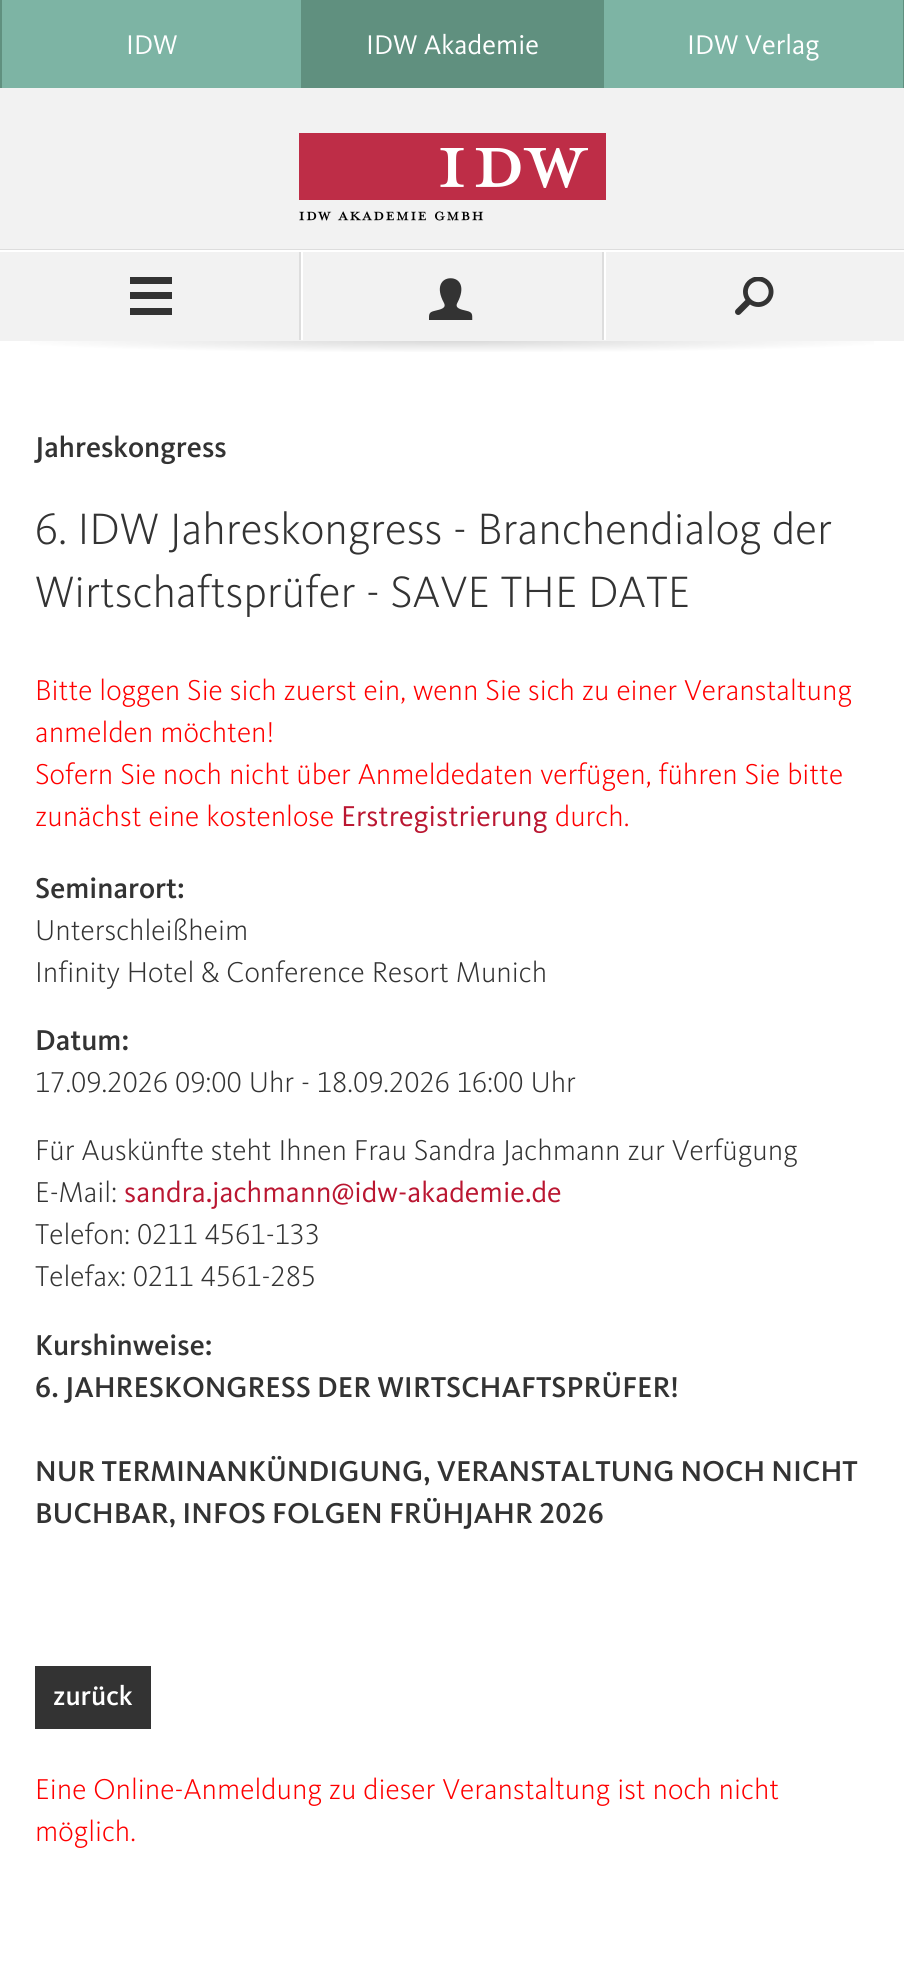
import math
import cairo

surface = cairo.ImageSurface(cairo.Format.RGB24, 904, 1967)
ctx = cairo.Context(surface)
options = cairo.FontOptions()
options.set_hint_metrics(cairo.HintMetrics.OFF)
options.set_hint_style(cairo.HintStyle.NONE)
ctx.set_font_options(options)
ctx.set_miter_limit(4)


def ink(r, g, b):
    ctx.set_source_rgb(r / 255, g / 255, b / 255)


def write(x, y, s, family, size, color, bold=False, italic=False):
    ctx.select_font_face(family, cairo.FontSlant.ITALIC if italic else cairo.FontSlant.NORMAL, cairo.FontWeight.BOLD if bold else cairo.FontWeight.NORMAL)
    ctx.set_font_size(size)
    ink(*color)
    ctx.move_to(x, y)
    ctx.show_text(s)


def block(x, y, w, h, *color):
    ink(*color)
    ctx.rectangle(x, y, w, h)
    ctx.fill()


def paste(path, x, y, w, h):
    ctx.save()
    ctx.set_source_surface(cairo.ImageSurface.create_from_png(path), x, y)
    ctx.rectangle(x, y, w, h)
    ctx.fill()
    ctx.restore()


s1 = dict(family="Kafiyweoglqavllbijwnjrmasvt", size=28, color=(255, 255, 255))
s2 = dict(family="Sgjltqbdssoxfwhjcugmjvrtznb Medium", size=29.75, color=(51, 51, 51))
s3 = dict(family="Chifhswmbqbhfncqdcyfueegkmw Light", size=45.5, color=(51, 51, 51))
s4 = dict(family="Chifhswmbqbhfncqdcyfueegkmw Light", size=29.75, color=(255, 0, 0))
s5 = dict(family="Kafiyweoglqavllbijwnjrmasvt", size=29.75, color=(186, 22, 49))
s6 = dict(family="Chifhswmbqbhfncqdcyfueegkmw Light", size=29.75, color=(51, 51, 51))
s7 = dict(family="Sgjltqbdssoxfwhjcugmjvrtznb Medium", size=28, color=(255, 255, 255))

ink(255, 255, 255)
ctx.paint()
block(2, 0, 901, 88, 125, 180, 164)
block(903, 0, 1, 88, 96, 144, 127)
block(0, 0, 2, 88, 96, 144, 127)
write(126, 54, "IDW", **s1)
block(301, 0, 303, 88, 96, 144, 127)
write(366, 54, "IDW Akademie", **s1)
write(687, 54, "IDW Verlag", **s1)
block(0, 88, 904, 253, 242, 242, 242)
paste("pic1.png", 299, 133, 307, 88)
block(0, 249, 904, 1, 221, 221, 221)
block(0, 250, 904, 2, 255, 255, 255)
block(299, 252, 2, 88, 221, 221, 221)
block(130, 292, 42, 7, 51, 51, 51)
block(130, 308, 42, 7, 51, 51, 51)
block(130, 277, 42, 7, 51, 51, 51)
block(602, 252, 2, 88, 221, 221, 221)
block(301, 252, 2, 88, 255, 255, 255)
paste("pic2.png", 429, 278, 44, 42)
block(604, 252, 2, 88, 255, 255, 255)
paste("pic3.png", 735, 277, 39, 38)
gradient = cairo.RadialGradient(0, 0, 0, 0, 0, 1)
gradient.set_matrix(cairo.Matrix(1 / 452, 0, 0, 1 / 12, -1 * 452 / 452, -1 * 341 / 12))
gradient.add_color_stop_rgba(0, 0.851, 0.851, 0.851, 1)
gradient.add_color_stop_rgba(1, 1, 1, 1, 1)
ctx.set_source(gradient)
ctx.rectangle(30, 341, 844, 11)
ctx.fill()
write(35, 457, "Jahreskongress", **s2)
write(35, 544, "6. IDW Jahreskongress - Branchendialog der", **s3)
write(35, 607, "Wirtschaftsprüfer - SAVE THE DATE", **s3)
write(35, 700, "Bitte loggen Sie sich zuerst ein, wenn Sie sich zu einer Veranstaltung", **s4)
write(35, 742, "anmelden möchten!", **s4)
write(35, 784, "Sofern Sie noch nicht über Anmeldedaten verfügen, führen Sie bitte", **s4)
write(35, 826, "zunächst eine kostenlose", **s4)
write(341, 826, "Erstregistrierung", **s5)
write(555, 826, "durch.", **s4)
write(35, 898, "Seminarort:", **s2)
write(35, 940, "Unterschleißheim", **s6)
write(35, 982, "Infinity Hotel & Conference Resort Munich", **s6)
write(35, 1050, "Datum:", **s2)
write(35, 1092, "17.09.2026 09:00 Uhr - 18.09.2026 16:00 Uhr", **s6)
write(35, 1160, "Für Auskünfte steht Ihnen Frau Sandra Jachmann zur Verfügung", **s6)
write(35, 1202, "E-Mail:", **s6)
write(124, 1202, "sandra.jachmann@idw-akademie.de", **s5)
write(35, 1244, "Telefon: 0211 4561-133", **s6)
write(35, 1286, "Telefax: 0211 4561-285", **s6)
write(35, 1355, "Kurshinweise:", **s2)
write(35, 1397, "6. JAHRESKONGRESS DER WIRTSCHAFTSPRÜFER!", **s2)
write(35, 1481, "NUR TERMINANKÜNDIGUNG, VERANSTALTUNG NOCH NICHT", **s2)
write(35, 1523, "BUCHBAR, INFOS FOLGEN FRÜHJAHR 2026", **s2)
block(35, 1666, 116, 63, 51, 51, 51)
write(53, 1705, "zurück", **s7)
write(35, 1799, "Eine Online-Anmeldung zu dieser Veranstaltung ist noch nicht", **s4)
write(35, 1841, "möglich.", **s4)
surface.write_to_png("screenshot.png")
